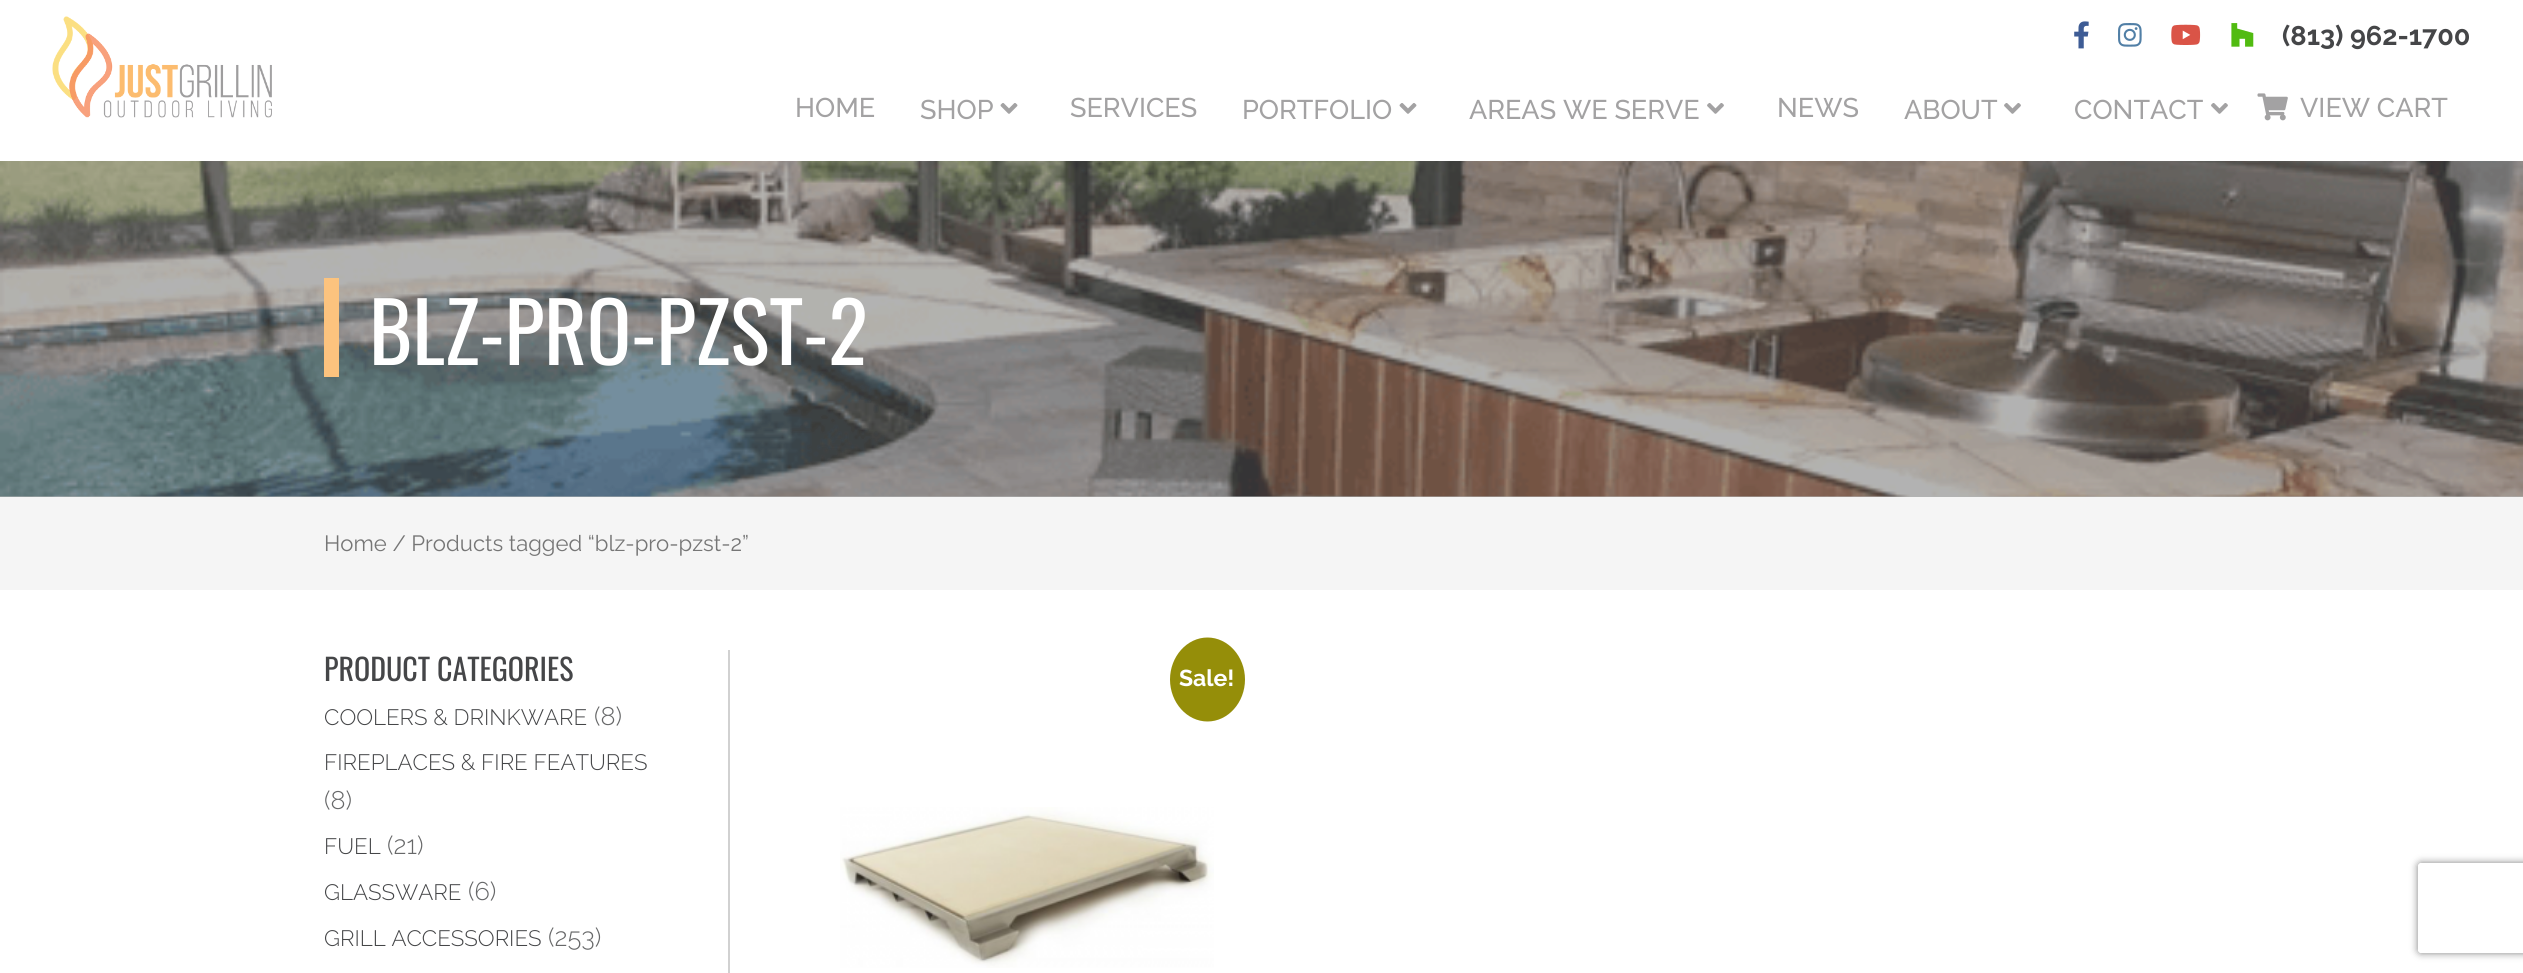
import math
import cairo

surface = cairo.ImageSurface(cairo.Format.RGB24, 2523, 973)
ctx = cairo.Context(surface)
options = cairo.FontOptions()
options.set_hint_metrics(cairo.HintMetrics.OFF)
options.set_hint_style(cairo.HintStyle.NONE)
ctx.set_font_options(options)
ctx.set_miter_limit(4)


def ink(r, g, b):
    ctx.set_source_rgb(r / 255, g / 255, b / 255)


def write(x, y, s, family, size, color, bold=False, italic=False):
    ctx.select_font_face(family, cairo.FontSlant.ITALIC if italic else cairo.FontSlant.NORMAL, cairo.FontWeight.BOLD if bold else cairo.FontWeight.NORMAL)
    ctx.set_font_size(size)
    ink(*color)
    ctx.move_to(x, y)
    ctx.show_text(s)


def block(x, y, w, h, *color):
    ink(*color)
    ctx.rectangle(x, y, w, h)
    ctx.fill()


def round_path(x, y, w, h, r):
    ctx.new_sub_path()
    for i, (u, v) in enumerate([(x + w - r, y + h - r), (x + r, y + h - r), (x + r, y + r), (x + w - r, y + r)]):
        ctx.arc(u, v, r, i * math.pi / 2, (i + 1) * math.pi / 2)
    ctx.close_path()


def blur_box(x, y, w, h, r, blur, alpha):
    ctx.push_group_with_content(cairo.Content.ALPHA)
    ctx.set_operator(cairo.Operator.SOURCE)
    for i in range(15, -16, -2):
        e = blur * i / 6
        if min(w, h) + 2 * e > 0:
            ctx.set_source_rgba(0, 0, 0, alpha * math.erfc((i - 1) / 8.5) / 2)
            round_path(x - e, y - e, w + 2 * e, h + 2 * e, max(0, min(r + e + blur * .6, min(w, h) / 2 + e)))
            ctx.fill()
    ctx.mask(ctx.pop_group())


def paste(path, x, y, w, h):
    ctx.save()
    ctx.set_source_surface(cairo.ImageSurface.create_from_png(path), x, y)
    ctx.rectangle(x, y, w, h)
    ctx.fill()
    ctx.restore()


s1 = dict(family="Raleway", size=27, color=(69, 70, 72), bold=True)
s2 = dict(family="Raleway Medium", size=27, color=(163, 162, 163))
s3 = dict(family="Oswald", size=82.5, color=(255, 255, 255))
s4 = dict(family="Raleway", size=22.1, color=(118, 118, 118))
s5 = dict(family="Oswald", size=30, color=(69, 70, 72))
s6 = dict(family="Raleway Light", size=22.3, color=(69, 70, 72))
s7 = dict(family="Raleway Light", size=25.5, color=(103, 104, 105))
s8 = dict(family="Raleway", size=23, color=(255, 255, 255), bold=True)

ink(255, 255, 255)
ctx.paint()
block(0, 168, 2523, 329, 179, 180, 181)
paste("pic1.png", 52, 16, 220, 102)
paste("pic2.png", 2074, 21, 15, 28)
paste("pic3.png", 2118, 23, 24, 24)
paste("pic4.png", 2171, 24, 30, 21)
paste("pic5.png", 2231, 23, 23, 24)
write(2282, 45, "(813) 962-1700", **s1)
write(795, 117, "HOME", **s2)
write(920, 119, "SHOP", **s2)
paste("pic6.png", 1000, 103, 18, 11)
write(1070, 117, "SERVICES", **s2)
write(1242, 119, "PORTFOLIO", **s2)
paste("pic6.png", 1399, 103, 18, 11)
write(1469, 119, "AREAS WE SERVE", **s2)
paste("pic7.png", 1707, 103, 17, 11)
write(1777, 117, "NEWS", **s2)
write(1904, 119, "ABOUT", **s2)
paste("pic7.png", 2004, 103, 17, 11)
write(2074, 119, "CONTACT", **s2)
paste("pic7.png", 2211, 103, 17, 11)
paste("pic8.png", 2257, 93, 31, 28)
write(2300, 117, "VIEW CART", **s2)
paste("pic9.png", 0, 161, 2523, 336)
block(324, 278, 15, 99, 252, 195, 126)
write(369, 365, "BLZ-PRO-PZST-2", **s3)
block(0, 497, 2523, 93, 245, 245, 245)
write(324, 551, "Home / Products tagged “blz-pro-pzst-2”", **s4)
block(728, 650, 2, 323, 209, 209, 209)
write(324, 681, "PRODUCT CATEGORIES", **s5)
write(324, 725, "COOLERS & DRINKWARE", **s6)
write(594, 725, "(8)", **s7)
write(324, 770, "FIREPLACES & FIRE FEATURES", **s6)
write(324, 809, "(8)", **s7)
write(324, 854, "FUEL", **s6)
write(387, 854, "(21)", **s7)
write(324, 900, "GLASSWARE", **s6)
write(468, 900, "(6)", **s7)
write(324, 946, "GRILL ACCESSORIES", **s6)
write(548, 946, "(253)", **s7)
ink(149, 142, 9)
ctx.new_path()
ctx.move_to(1207.5, 637.5)
ctx.curve_to(1228, 637.5, 1245, 656.5, 1245, 679.5)
ctx.curve_to(1245, 702.5, 1228, 721.5, 1207.5, 721.5)
ctx.curve_to(1187, 721.5, 1170, 702.5, 1170, 679.5)
ctx.curve_to(1170, 656.5, 1187, 637.5, 1207.5, 637.5)
ctx.close_path()
ctx.fill()
write(1179, 686, "Sale!", **s8)
paste("pic10.png", 840, 807, 374, 161)
ctx.save()
ctx.set_fill_rule(cairo.FillRule.EVEN_ODD)
ctx.new_path()
ctx.move_to(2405, 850)
ctx.line_to(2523, 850)
ctx.line_to(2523, 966)
ctx.line_to(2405, 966)
ctx.close_path()
ctx.move_to(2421, 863)
ctx.line_to(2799, 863)
ctx.curve_to(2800.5, 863, 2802, 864.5, 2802, 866)
ctx.line_to(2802, 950)
ctx.curve_to(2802, 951.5, 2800.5, 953, 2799, 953)
ctx.line_to(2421, 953)
ctx.curve_to(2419.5, 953, 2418, 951.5, 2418, 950)
ctx.line_to(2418, 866)
ctx.curve_to(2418, 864.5, 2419.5, 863, 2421, 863)
ctx.close_path()
ctx.clip()
ink(128, 128, 128)
blur_box(2418, 863, 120, 90, 3, 4, 1)
ctx.restore()
surface.write_to_png("screenshot.png")
